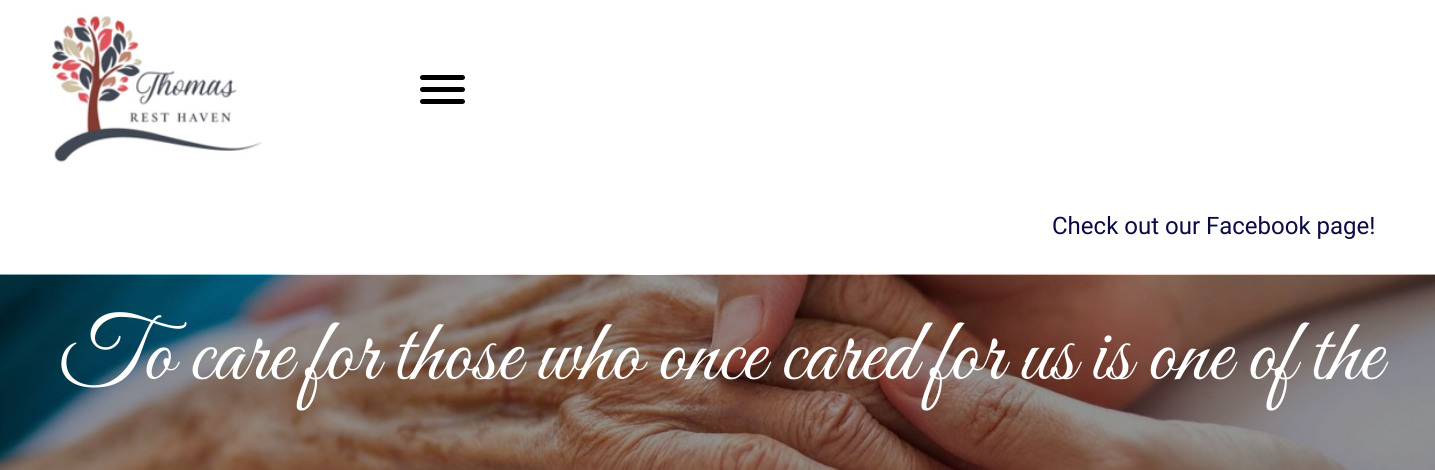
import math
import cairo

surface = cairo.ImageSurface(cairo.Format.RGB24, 1435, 470)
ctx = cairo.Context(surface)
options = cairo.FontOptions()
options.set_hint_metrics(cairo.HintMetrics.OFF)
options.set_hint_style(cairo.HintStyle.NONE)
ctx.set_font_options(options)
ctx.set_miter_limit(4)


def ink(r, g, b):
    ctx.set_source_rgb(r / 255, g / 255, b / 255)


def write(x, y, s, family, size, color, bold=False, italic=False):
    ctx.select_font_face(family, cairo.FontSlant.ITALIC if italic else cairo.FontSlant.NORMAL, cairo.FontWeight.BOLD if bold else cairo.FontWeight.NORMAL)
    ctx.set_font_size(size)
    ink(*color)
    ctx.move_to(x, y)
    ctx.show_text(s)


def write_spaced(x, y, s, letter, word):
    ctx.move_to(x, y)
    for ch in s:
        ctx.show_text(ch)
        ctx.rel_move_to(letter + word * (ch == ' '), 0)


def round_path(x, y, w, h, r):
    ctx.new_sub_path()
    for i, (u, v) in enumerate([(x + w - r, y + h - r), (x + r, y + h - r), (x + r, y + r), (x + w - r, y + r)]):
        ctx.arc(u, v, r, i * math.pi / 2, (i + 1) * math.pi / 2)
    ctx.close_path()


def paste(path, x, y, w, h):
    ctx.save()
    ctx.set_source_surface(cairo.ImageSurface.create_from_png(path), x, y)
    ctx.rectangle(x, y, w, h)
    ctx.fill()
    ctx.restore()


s1 = dict(family="Roboto", size=24, color=(11, 11, 69))

ink(255, 255, 255)
ctx.paint()
paste("pic1.png", 50, 15, 212, 148)
ink(0, 0, 0)
round_path(420, 87, 45, 5, 2.5)
ctx.fill()
round_path(420, 75, 45, 5, 2.5)
ctx.fill()
round_path(420, 99, 45, 5, 2.5)
ctx.fill()
write(1052, 234, "Check out our Facebook page!", **s1)
paste("pic2.png", 0, 274, 1435, 196)
ctx.select_font_face("Great Vibes")
ctx.set_font_size(90)
ink(255, 255, 255)
write_spaced(59, 379, "To care for those who once cared for us is one of the", 0, 0.5)
surface.write_to_png("screenshot.png")
